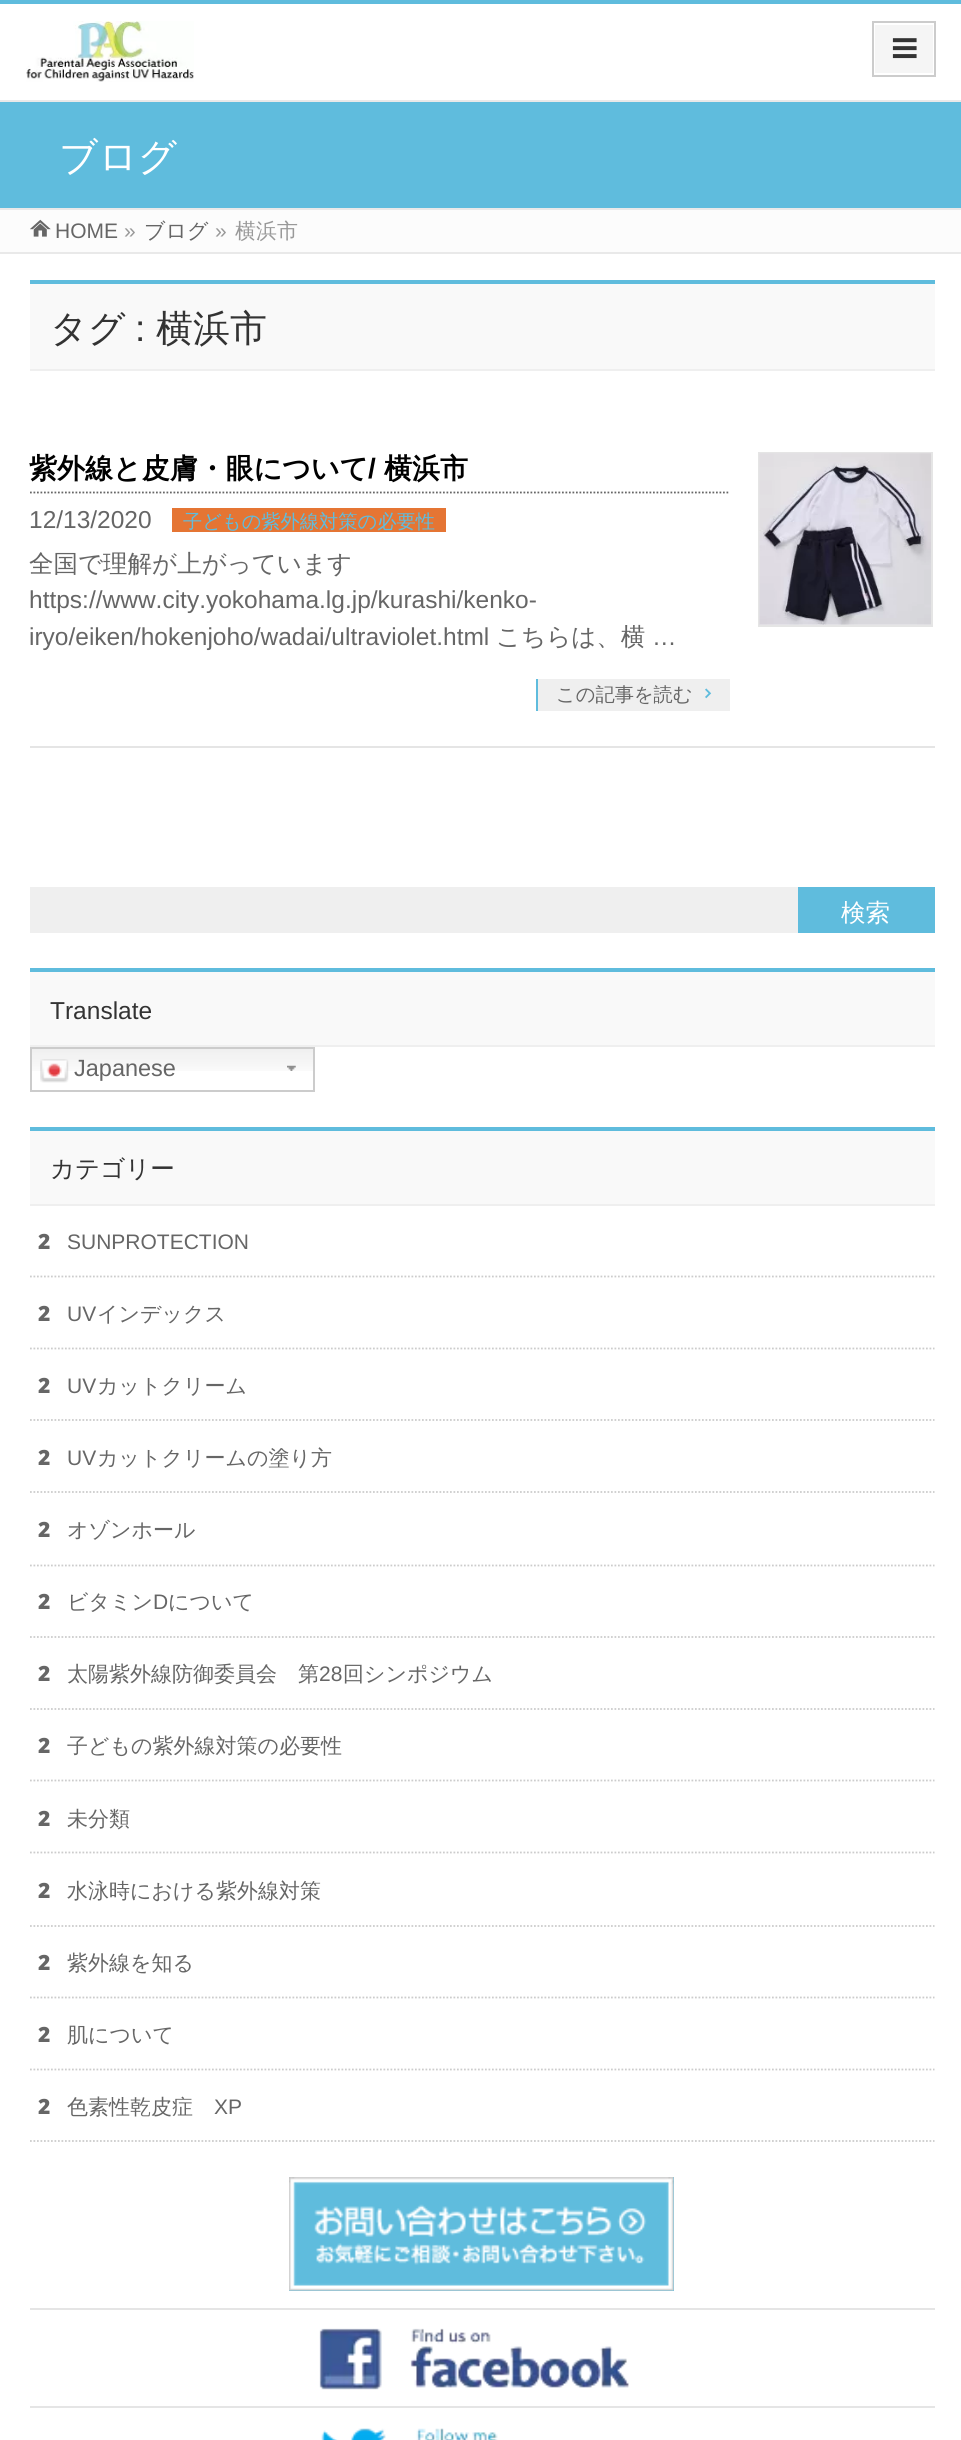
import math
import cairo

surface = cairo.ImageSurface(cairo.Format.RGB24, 961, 2440)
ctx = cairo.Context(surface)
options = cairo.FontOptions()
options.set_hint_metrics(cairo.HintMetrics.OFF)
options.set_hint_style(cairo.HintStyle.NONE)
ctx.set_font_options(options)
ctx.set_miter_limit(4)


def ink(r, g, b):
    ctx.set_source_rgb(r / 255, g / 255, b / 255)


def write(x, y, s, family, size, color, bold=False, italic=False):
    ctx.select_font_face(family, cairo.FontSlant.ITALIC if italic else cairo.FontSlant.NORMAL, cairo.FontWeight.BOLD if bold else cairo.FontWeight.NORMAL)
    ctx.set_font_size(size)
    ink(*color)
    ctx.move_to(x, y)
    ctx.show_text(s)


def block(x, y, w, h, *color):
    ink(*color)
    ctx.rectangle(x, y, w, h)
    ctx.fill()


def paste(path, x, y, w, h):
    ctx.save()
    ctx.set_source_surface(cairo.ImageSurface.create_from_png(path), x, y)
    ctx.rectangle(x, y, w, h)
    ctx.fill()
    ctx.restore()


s1 = dict(family="WenQuanYi Zen Hei Medium", size=38.5, color=(255, 255, 255))
s2 = dict(family="Liberation Sans", size=21, color=(102, 102, 102))
s3 = dict(family="Liberation Sans", size=21, color=(153, 153, 153))
s4 = dict(family="WenQuanYi Zen Hei Medium", size=21, color=(102, 102, 102))
s5 = dict(family="WenQuanYi Zen Hei Medium", size=21, color=(153, 153, 153))
s6 = dict(family="WenQuanYi Zen Hei Medium", size=37, color=(51, 51, 51))
s7 = dict(family="Liberation Sans", size=37, color=(51, 51, 51))
s8 = dict(family="WenQuanYi Zen Hei", size=28, color=(0, 0, 0), bold=True)
s9 = dict(family="Liberation Sans", size=28, color=(0, 0, 0), bold=True)
s10 = dict(family="Liberation Sans", size=24.5, color=(102, 102, 102))
s11 = dict(family="WenQuanYi Zen Hei Medium", size=19.25, color=(95, 188, 221))
s12 = dict(family="WenQuanYi Zen Hei Medium", size=24.5, color=(102, 102, 102))
s13 = dict(family="WenQuanYi Zen Hei Medium", size=19.25, color=(102, 102, 102))
s14 = dict(family="WenQuanYi Zen Hei Medium", size=24.5, color=(255, 255, 255))
s15 = dict(family="Liberation Sans", size=24.5, color=(51, 51, 51))
s16 = dict(family="Liberation Sans", size=23.5, color=(102, 102, 102))
s17 = dict(family="WenQuanYi Zen Hei Medium", size=24.5, color=(51, 51, 51))
s18 = dict(family="Noto Sans Black", size=21, color=(102, 102, 102))

ink(255, 255, 255)
ctx.paint()
block(0, 0, 961, 4, 95, 188, 221)
paste("pic1.png", 26, 21, 168, 61)
block(875, 25, 58, 48, 245, 245, 245)
ctx.rectangle(873, 22, 62, 54)
ink(204, 204, 204)
ctx.stroke()
paste("pic2.png", 892, 38, 25, 21)
block(0, 102, 961, 106, 95, 188, 221)
block(0, 100, 961, 2, 233, 233, 233)
block(0, 208, 961, 2, 233, 233, 233)
write(59, 170, "ブログ", **s1)
block(0, 210, 961, 42, 252, 252, 252)
paste("pic3.png", 30, 219, 21, 18)
write(55, 238, "HOME", **s2)
write(124, 238, "»", **s3)
write(144, 238, "ブログ", **s4)
write(215, 238, "»", **s3)
write(235, 238, "横浜市", **s5)
block(0, 252, 961, 2, 233, 233, 233)
block(30, 284, 905, 85, 249, 249, 249)
block(30, 280, 905, 4, 95, 188, 221)
block(30, 369, 905, 2, 239, 239, 239)
write(50, 341, "タグ", **s6)
write(135, 341, ":", **s7)
write(156, 341, "横浜市", **s6)
block(30, 746, 905, 2, 229, 229, 229)
ctx.new_path()
ctx.move_to(30, 492.5)
ctx.line_to(730, 492.5)
ink(102, 102, 102)
ctx.set_line_width(1.8)
ctx.set_dash([1.75, 1.75])
ctx.stroke()
write(29, 478, "紫外線と皮膚・眼について", **s8)
write(368, 478, "/", **s9)
write(384, 478, "横浜市", **s8)
write(29, 528, "12/13/2020", **s10)
block(172, 508, 274, 24, 229, 117, 52)
write(183, 528, "子どもの紫外線対策の必要性", **s11)
write(29, 572, "全国で理解が上がっています", **s12)
write(29, 608, "https://www.city.yokohama.lg.jp/kurashi/kenko-", **s10)
write(29, 645, "iryo/eiken/hokenjoho/wadai/ultraviolet.html", **s10)
write(496, 645, "こちらは、横", **s12)
write(652, 645, "…", **s10)
block(538, 679, 192, 32, 239, 239, 239)
block(536, 679, 2, 32, 95, 188, 221)
write(556, 701, "この記事を読む", **s13)
paste("pic4.png", 705, 688, 7, 11)
ctx.rectangle(759, 453, 173, 173)
ink(229, 229, 229)
ctx.set_line_width(2)
ctx.set_dash([])
ctx.stroke()
paste("pic5.png", 759, 453, 172, 172)
block(30, 887, 768, 46, 239, 239, 239)
block(798, 887, 137, 46, 95, 188, 221)
write(841, 921, "検索", **s14)
block(30, 972, 905, 73, 249, 249, 249)
block(30, 968, 905, 4, 95, 188, 221)
block(30, 1045, 905, 2, 239, 239, 239)
write(50, 1019, "Translate", **s15)
paste("pic6.png", 32, 1049, 281, 22)
paste("pic7.png", 287, 1065, 9, 6)
ctx.rectangle(31, 1048, 283, 43)
ink(204, 204, 204)
ctx.stroke()
paste("pic8.png", 40, 1059, 29, 24)
write(74, 1076, "Japanese", **s16)
block(30, 1131, 905, 73, 249, 249, 249)
block(30, 1127, 905, 4, 95, 188, 221)
block(30, 1204, 905, 2, 239, 239, 239)
write(50, 1177, "カテゴリー", **s17)
ctx.new_path()
ctx.move_to(30, 1276.5)
ctx.line_to(934.5, 1276.5)
ink(204, 204, 204)
ctx.set_line_width(1.8)
ctx.set_dash([1.75, 1.75])
ctx.stroke()
write(38, 1249, "2", **s18)
write(67, 1249, "SUNPROTECTION", **s2)
ctx.new_path()
ctx.move_to(30, 1348.5)
ctx.line_to(934.5, 1348.5)
ink(204, 204, 204)
ctx.stroke()
write(38, 1321, "2", **s18)
write(67, 1321, "UV", **s2)
write(97, 1321, "インデックス", **s4)
ctx.new_path()
ctx.move_to(30, 1420)
ctx.line_to(934.5, 1420)
ink(204, 204, 204)
ctx.stroke()
write(38, 1393, "2", **s18)
write(67, 1393, "UV", **s2)
write(97, 1393, "カットクリーム", **s4)
ctx.new_path()
ctx.move_to(30, 1492)
ctx.line_to(934.5, 1492)
ink(204, 204, 204)
ctx.stroke()
write(38, 1465, "2", **s18)
write(67, 1465, "UV", **s2)
write(97, 1465, "カットクリームの塗り方", **s4)
ctx.new_path()
ctx.move_to(30, 1565.5)
ctx.line_to(934.5, 1565.5)
ink(204, 204, 204)
ctx.stroke()
write(38, 1537, "2", **s18)
write(67, 1537, "オゾンホール", **s4)
ctx.new_path()
ctx.move_to(30, 1637)
ctx.line_to(934.5, 1637)
ink(204, 204, 204)
ctx.stroke()
write(38, 1609, "2", **s18)
write(67, 1609, "ビタミン", **s4)
write(153, 1609, "D", **s2)
write(168, 1609, "について", **s4)
ctx.new_path()
ctx.move_to(30, 1709)
ctx.line_to(934.5, 1709)
ink(204, 204, 204)
ctx.stroke()
write(38, 1681, "2", **s18)
write(67, 1681, "太陽紫外線防御委員会　第", **s4)
write(319, 1681, "28", **s2)
write(343, 1681, "回シンポジウム", **s4)
ctx.new_path()
ctx.move_to(30, 1780.5)
ctx.line_to(934.5, 1780.5)
ink(204, 204, 204)
ctx.stroke()
write(38, 1753, "2", **s18)
write(67, 1753, "子どもの紫外線対策の必要性", **s4)
ctx.new_path()
ctx.move_to(30, 1852.5)
ctx.line_to(934.5, 1852.5)
ink(204, 204, 204)
ctx.stroke()
write(38, 1826, "2", **s18)
write(67, 1826, "未分類", **s4)
ctx.new_path()
ctx.move_to(30, 1926)
ctx.line_to(934.5, 1926)
ink(204, 204, 204)
ctx.stroke()
write(38, 1898, "2", **s18)
write(67, 1898, "水泳時における紫外線対策", **s4)
ctx.new_path()
ctx.move_to(30, 1997.5)
ctx.line_to(934.5, 1997.5)
ink(204, 204, 204)
ctx.stroke()
write(38, 1970, "2", **s18)
write(67, 1970, "紫外線を知る", **s4)
ctx.new_path()
ctx.move_to(30, 2069.5)
ctx.line_to(934.5, 2069.5)
ink(204, 204, 204)
ctx.stroke()
write(38, 2042, "2", **s18)
write(67, 2042, "肌について", **s4)
ctx.new_path()
ctx.move_to(30, 2141)
ctx.line_to(934.5, 2141)
ink(204, 204, 204)
ctx.stroke()
write(38, 2114, "2", **s18)
write(67, 2114, "色素性乾皮症", **s4)
write(214, 2114, "XP", **s2)
block(289, 2177, 385, 114, 95, 188, 221)
paste("pic9.png", 289, 2177, 385, 114)
block(30, 2308, 905, 2, 229, 229, 229)
block(30, 2406, 905, 2, 229, 229, 229)
paste("pic10.png", 319, 2328, 310, 62)
paste("pic11.png", 321, 2428, 177, 12)
surface.write_to_png("screenshot.png")
